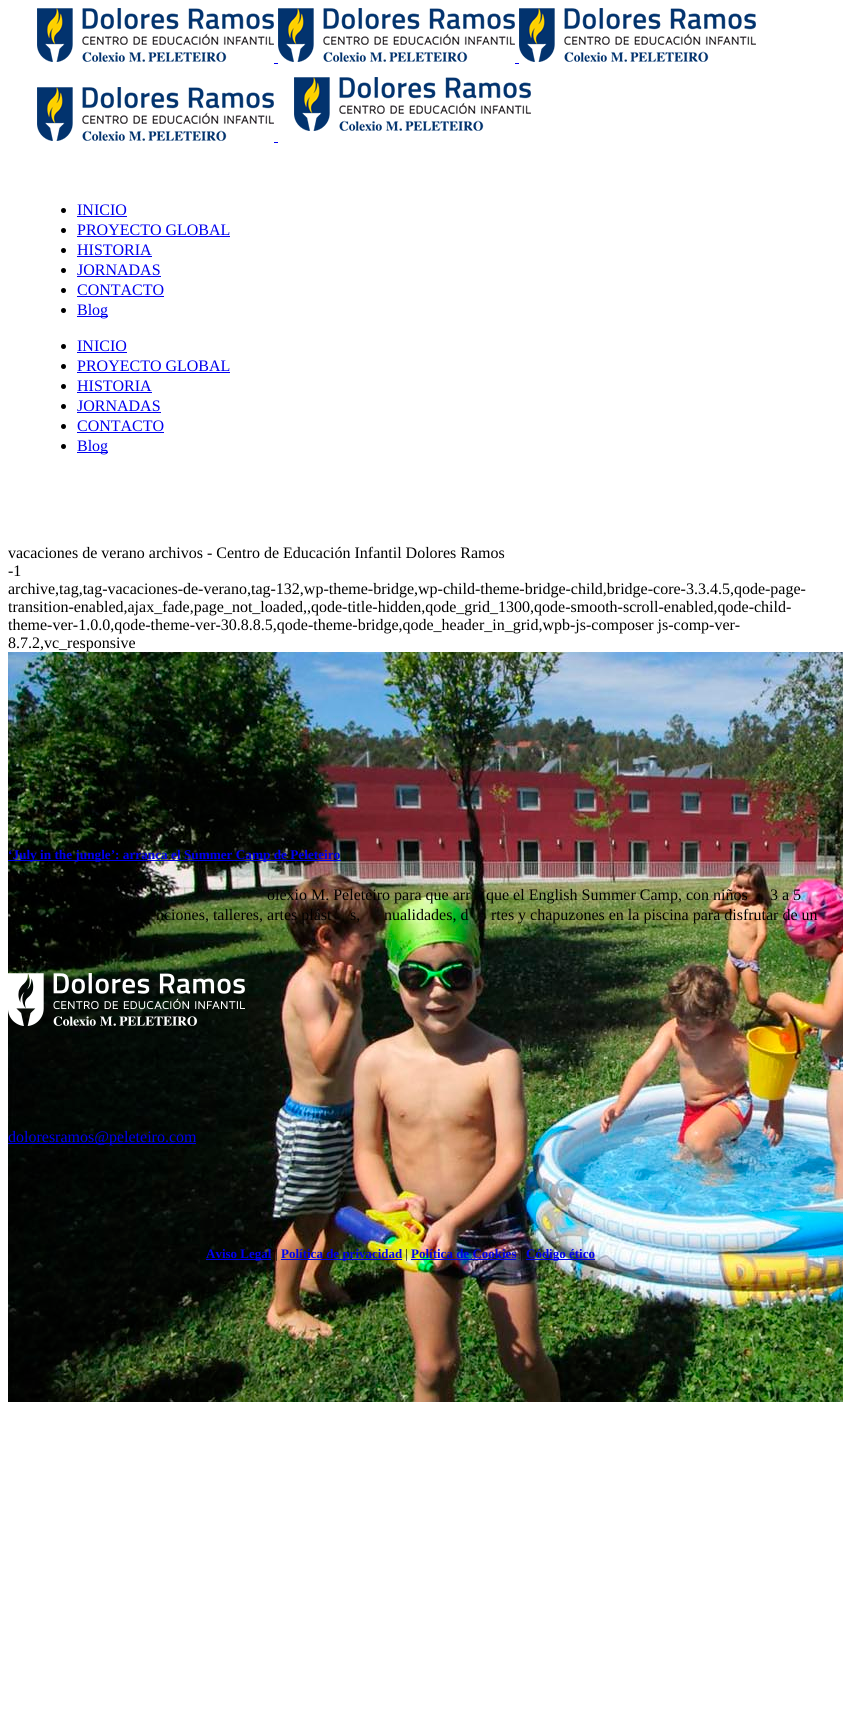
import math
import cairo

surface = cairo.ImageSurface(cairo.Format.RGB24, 843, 1718)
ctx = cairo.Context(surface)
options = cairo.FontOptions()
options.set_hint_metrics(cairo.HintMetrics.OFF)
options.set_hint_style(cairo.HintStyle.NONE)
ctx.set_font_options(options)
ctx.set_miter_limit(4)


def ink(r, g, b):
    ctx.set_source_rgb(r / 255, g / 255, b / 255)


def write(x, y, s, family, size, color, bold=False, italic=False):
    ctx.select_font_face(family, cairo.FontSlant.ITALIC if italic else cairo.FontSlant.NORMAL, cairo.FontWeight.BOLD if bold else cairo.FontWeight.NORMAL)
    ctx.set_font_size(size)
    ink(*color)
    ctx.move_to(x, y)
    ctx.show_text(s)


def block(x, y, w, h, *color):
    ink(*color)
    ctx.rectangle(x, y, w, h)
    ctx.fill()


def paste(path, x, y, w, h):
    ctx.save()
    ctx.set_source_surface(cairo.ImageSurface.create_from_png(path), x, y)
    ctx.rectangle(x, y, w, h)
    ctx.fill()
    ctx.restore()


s1 = dict(family="Liberation Serif", size=16, color=(0, 0, 238))
s2 = dict(family="Liberation Serif", size=16, color=(0, 0, 0))
s3 = dict(family="Liberation Serif", size=13.25, color=(0, 0, 238), bold=True)
s4 = dict(family="Liberation Serif", size=13, color=(0, 0, 238), bold=True)
s5 = dict(family="Liberation Serif", size=13, color=(0, 0, 0))

ink(255, 255, 255)
ctx.paint()
paste("pic1.png", 37, 8, 237, 54)
paste("pic1.png", 278, 8, 237, 54)
paste("pic1.png", 519, 8, 237, 54)
block(274, 63, 4, 1, 0, 0, 238)
block(515, 63, 4, 1, 0, 0, 238)
paste("pic1.png", 37, 87, 237, 54)
paste("pic1.png", 294, 77, 237, 54)
block(274, 142, 4, 1, 0, 0, 238)
ink(0, 0, 0)
ctx.arc(63.5, 210.5, 2.5, 0, 2 * math.pi)
ctx.fill()
write(77, 215, "INICIO", **s1)
block(77, 216, 50, 1, 0, 0, 238)
ink(0, 0, 0)
ctx.new_path()
ctx.arc(63.5, 230.5, 2.5, 0, 2 * math.pi)
ctx.fill()
write(77, 235, "PROYECTO GLOBAL", **s1)
block(77, 236, 153, 1, 0, 0, 238)
ink(0, 0, 0)
ctx.new_path()
ctx.arc(63.5, 250.5, 2.5, 0, 2 * math.pi)
ctx.fill()
write(77, 255, "HISTORIA", **s1)
block(77, 256, 75, 1, 0, 0, 238)
ink(0, 0, 0)
ctx.new_path()
ctx.arc(63.5, 270.5, 2.5, 0, 2 * math.pi)
ctx.fill()
write(77, 275, "JORNADAS", **s1)
block(77, 276, 84, 1, 0, 0, 238)
ink(0, 0, 0)
ctx.new_path()
ctx.arc(63.5, 290.5, 2.5, 0, 2 * math.pi)
ctx.fill()
write(77, 295, "CONTACTO", **s1)
block(77, 296, 87, 1, 0, 0, 238)
ink(0, 0, 0)
ctx.new_path()
ctx.arc(63.5, 310.5, 2.5, 0, 2 * math.pi)
ctx.fill()
block(77, 316, 31, 1, 0, 0, 238)
write(77, 315, "Blog", **s1)
ink(0, 0, 0)
ctx.new_path()
ctx.arc(63.5, 346.5, 2.5, 0, 2 * math.pi)
ctx.fill()
write(77, 351, "INICIO", **s1)
block(77, 352, 50, 1, 0, 0, 238)
ink(0, 0, 0)
ctx.new_path()
ctx.arc(63.5, 366.5, 2.5, 0, 2 * math.pi)
ctx.fill()
write(77, 371, "PROYECTO GLOBAL", **s1)
block(77, 372, 153, 1, 0, 0, 238)
ink(0, 0, 0)
ctx.new_path()
ctx.arc(63.5, 386.5, 2.5, 0, 2 * math.pi)
ctx.fill()
write(77, 391, "HISTORIA", **s1)
block(77, 392, 75, 1, 0, 0, 238)
ink(0, 0, 0)
ctx.new_path()
ctx.arc(63.5, 406.5, 2.5, 0, 2 * math.pi)
ctx.fill()
write(77, 411, "JORNADAS", **s1)
block(77, 412, 84, 1, 0, 0, 238)
ink(0, 0, 0)
ctx.new_path()
ctx.arc(63.5, 426.5, 2.5, 0, 2 * math.pi)
ctx.fill()
write(77, 431, "CONTACTO", **s1)
block(77, 432, 87, 1, 0, 0, 238)
ink(0, 0, 0)
ctx.new_path()
ctx.arc(63.5, 446.5, 2.5, 0, 2 * math.pi)
ctx.fill()
block(77, 452, 31, 1, 0, 0, 238)
write(77, 451, "Blog", **s1)
write(8, 558, "vacaciones de verano archivos - Centro de Educación Infantil Dolores Ramos", **s2)
write(8, 576, "-1", **s2)
write(8, 594, "archive,tag,tag-vacaciones-de-verano,tag-132,wp-theme-bridge,wp-child-theme-bridge-child,bridge-core-3.3.4.5,qode-page-", **s2)
write(8, 612, "transition-enabled,ajax_fade,page_not_loaded,,qode-title-hidden,qode_grid_1300,qode-smooth-scroll-enabled,qode-child-", **s2)
write(8, 630, "theme-ver-1.0.0,qode-theme-ver-30.8.8.5,qode-theme-bridge,qode_header_in_grid,wpb-js-composer js-comp-ver-", **s2)
write(8, 648, "8.7.2,vc_responsive", **s2)
paste("pic2.png", 8, 652, 835, 750)
block(8, 860, 333, 1, 0, 0, 238)
write(8, 859, "‘July in the jungle’: arranca el Summer Camp de Peleteiro", **s3)
write(267, 900, "olexio M. Peleteiro para que arr", **s2)
write(486, 900, "que el English Summer Camp, con niños", **s2)
write(770, 900, "3 a 5", **s2)
write(156, 920, "nciones, talleres, artes plást", **s2)
write(350, 920, "s,", **s2)
write(384, 920, "nualidades, d", **s2)
write(491, 920, "rtes y chapuzones en la piscina para disfrutar de un", **s2)
paste("pic3.png", 8, 973, 237, 53)
block(8, 1143, 188, 1, 0, 0, 238)
write(8, 1142, "doloresramos@peleteiro.com", **s1)
block(206, 1259, 65, 1, 0, 0, 238)
write(206, 1258, "Aviso Legal", **s4)
write(275, 1258, "|", **s5)
block(281, 1259, 121, 1, 0, 0, 238)
write(281, 1258, "Política de privacidad", **s4)
write(405, 1258, "|", **s5)
write(411, 1258, "Política de Cookies", **s4)
block(411, 1259, 105, 1, 0, 0, 238)
write(520, 1258, "|", **s5)
block(526, 1259, 69, 1, 0, 0, 238)
write(526, 1258, "Código ético", **s4)
surface.write_to_png("screenshot.png")
